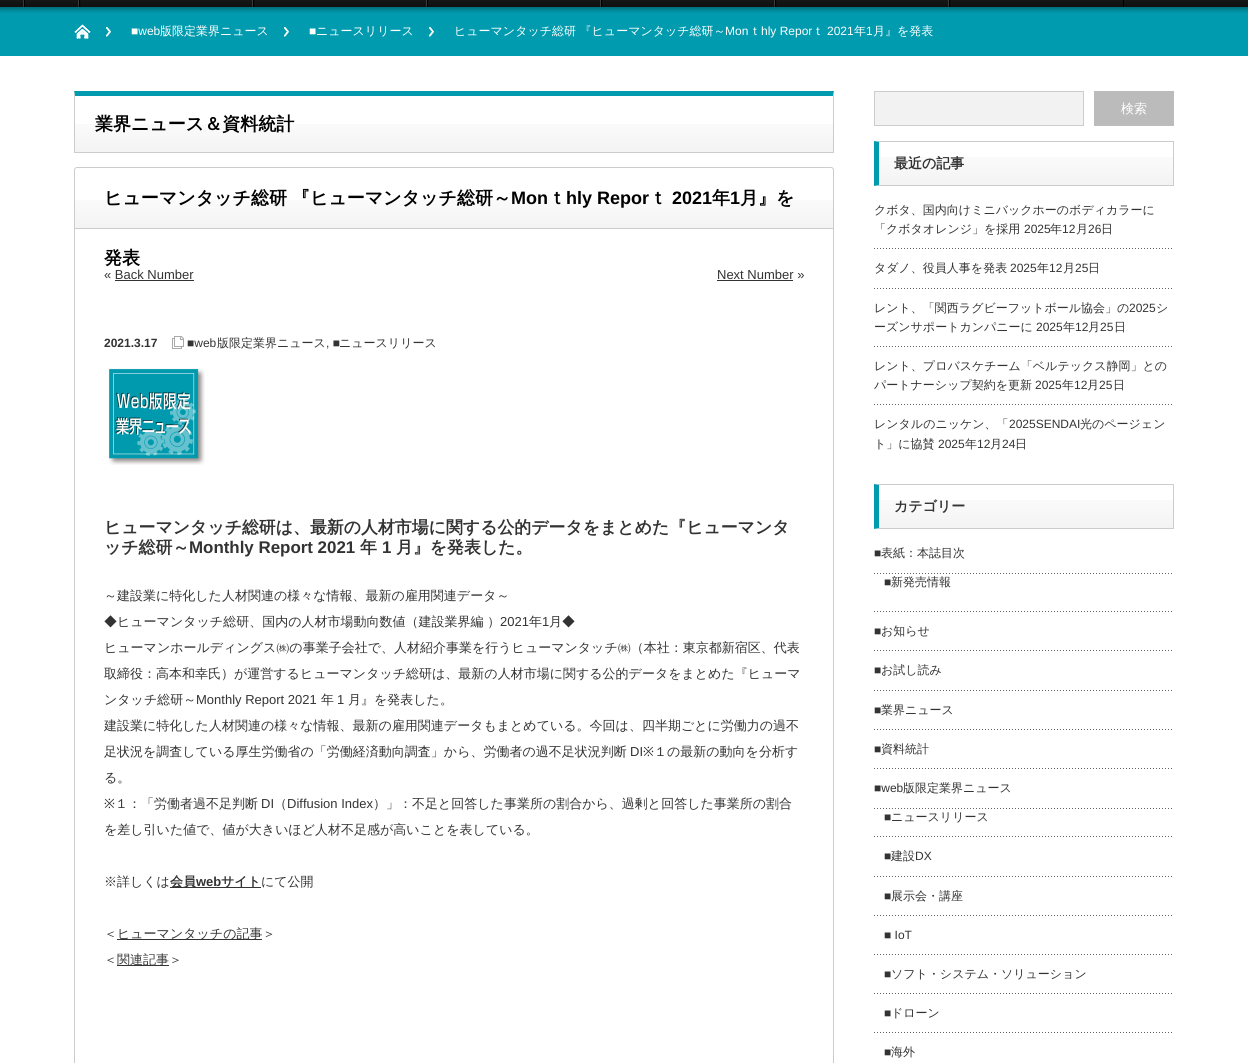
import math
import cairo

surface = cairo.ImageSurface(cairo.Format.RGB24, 1248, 1063)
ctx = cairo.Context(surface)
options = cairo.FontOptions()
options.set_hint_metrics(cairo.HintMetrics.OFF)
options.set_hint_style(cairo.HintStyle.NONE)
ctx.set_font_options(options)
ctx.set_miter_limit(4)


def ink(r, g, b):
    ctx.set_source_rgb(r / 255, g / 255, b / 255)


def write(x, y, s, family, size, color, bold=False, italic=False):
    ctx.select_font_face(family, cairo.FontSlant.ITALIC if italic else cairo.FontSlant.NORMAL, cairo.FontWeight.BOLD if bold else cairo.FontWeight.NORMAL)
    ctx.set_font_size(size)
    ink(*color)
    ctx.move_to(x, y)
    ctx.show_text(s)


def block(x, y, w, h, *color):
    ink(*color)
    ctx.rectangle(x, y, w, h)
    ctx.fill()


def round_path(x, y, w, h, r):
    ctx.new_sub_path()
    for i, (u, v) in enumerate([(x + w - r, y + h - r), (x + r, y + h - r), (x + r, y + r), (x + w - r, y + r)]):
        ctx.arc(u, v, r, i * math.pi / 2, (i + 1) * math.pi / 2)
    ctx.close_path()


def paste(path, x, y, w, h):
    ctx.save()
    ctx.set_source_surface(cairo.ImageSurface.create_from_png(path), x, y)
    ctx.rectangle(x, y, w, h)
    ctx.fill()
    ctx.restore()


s1 = dict(family="Liberation Sans", size=12, color=(255, 255, 255))
s2 = dict(family="WenQuanYi Zen Hei Medium", size=12, color=(255, 255, 255))
s3 = dict(family="WenQuanYi Zen Hei", size=18, color=(0, 0, 0), bold=True)
s4 = dict(family="Liberation Sans", size=18, color=(0, 0, 0), bold=True)
s5 = dict(family="Liberation Sans", size=13, color=(51, 51, 51))
s6 = dict(family="Liberation Sans", size=12, color=(51, 51, 51), bold=True)
s7 = dict(family="Liberation Sans", size=12, color=(51, 51, 51))
s8 = dict(family="WenQuanYi Zen Hei Medium", size=12, color=(51, 51, 51))
s9 = dict(family="WenQuanYi Zen Hei", size=16.9, color=(51, 51, 51), bold=True)
s10 = dict(family="Liberation Sans", size=16.9, color=(51, 51, 51), bold=True)
s11 = dict(family="WenQuanYi Zen Hei Medium", size=13, color=(51, 51, 51))
s12 = dict(family="Noto Sans", size=13, color=(51, 51, 51))
s13 = dict(family="WenQuanYi Zen Hei", size=13, color=(51, 51, 51), bold=True)
s14 = dict(family="Liberation Sans", size=13, color=(51, 51, 51), bold=True)
s15 = dict(family="WenQuanYi Zen Hei Medium", size=13, color=(255, 255, 255))
s16 = dict(family="WenQuanYi Zen Hei", size=14, color=(51, 51, 51), bold=True)

ink(255, 255, 255)
ctx.paint()
paste("pic1.png", 0, 0, 1248, 7)
paste("pic2.png", 23, 0, 2, 7)
block(1123, 0, 1, 7, 0, 0, 0)
paste("pic3.png", 78, 0, 174, 7)
paste("pic3.png", 252, 0, 174, 7)
paste("pic3.png", 426, 0, 174, 7)
paste("pic3.png", 600, 0, 174, 7)
paste("pic3.png", 774, 0, 174, 7)
paste("pic3.png", 948, 0, 174, 7)
block(0, 7, 1248, 49, 0, 155, 174)
paste("pic4.png", 0, 7, 1248, 6)
paste("pic5.png", 106, 27, 5, 10)
paste("pic6.png", 74, 24, 17, 15)
paste("pic5.png", 284, 27, 5, 10)
write(131, 35, "■web", **s1)
write(160, 35, "版限定業界ニュース", **s2)
paste("pic5.png", 429, 27, 5, 10)
write(309, 35, "■", **s1)
write(316, 35, "ニュースリリース", **s2)
write(454, 35, "ヒューマンタッチ総研 『ヒューマンタッチ総研～", **s2)
write(725, 35, "Mon", **s1)
write(749, 35, "ｔ", **s2)
write(761, 35, "hly Repor", **s1)
write(812, 35, "ｔ", **s2)
write(827, 35, "2021", **s1)
write(854, 35, "年", **s2)
write(866, 35, "1", **s1)
write(873, 35, "月』を発表", **s2)
paste("pic7.png", 75, 124, 758, 28)
ink(0, 155, 174)
ctx.new_path()
ctx.move_to(74, 91)
ctx.line_to(834, 91)
ctx.line_to(833, 96)
ctx.line_to(75, 96)
ctx.close_path()
ctx.fill()
ink(204, 204, 204)
ctx.new_path()
ctx.move_to(834, 91)
ctx.line_to(834, 153)
ctx.line_to(833, 152)
ctx.line_to(833, 96)
ctx.close_path()
ctx.fill()
block(74, 152, 760, 1, 204, 204, 204)
ctx.new_path()
ctx.move_to(74, 153)
ctx.line_to(74, 91)
ctx.line_to(75, 96)
ctx.line_to(75, 152)
ctx.close_path()
ctx.fill()
write(95, 130, "業界ニュース＆資料統計", **s3)
round_path(74.5, 167.5, 759, 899, 2.5)
ink(204, 204, 204)
ctx.set_line_width(1)
ctx.stroke()
paste("pic7.png", 75, 200, 758, 28)
block(75, 228, 758, 1, 204, 204, 204)
write(104, 204, "ヒューマンタッチ総研", **s3)
write(292, 204, "『ヒューマンタッチ総研～", **s3)
write(511, 204, "Mon", **s4)
write(548, 204, "ｔ", **s3)
write(566, 204, "hly Repor", **s4)
write(649, 204, "ｔ", **s3)
write(672, 204, "2021", **s4)
write(712, 204, "年", **s3)
write(730, 204, "1", **s4)
write(740, 204, "月』を", **s3)
write(104, 264, "発表", **s3)
write(104, 279, "« Back Number", **s5)
block(115, 280, 79, 1, 51, 51, 51)
write(717, 279, "Next Number »", **s5)
block(717, 280, 76, 1, 51, 51, 51)
write(104, 347, "2021.3.17", **s6)
paste("pic8.png", 172, 336, 12, 13)
write(187, 347, "■web", **s7)
write(217, 347, "版限定業界ニュース", **s8)
write(326, 347, ", ■", **s7)
write(339, 347, "ニュースリリース", **s8)
paste("pic9.png", 108, 368, 97, 97)
write(104, 533, "ヒューマンタッチ総研は、最新の人材市場に関する公的データをまとめた『ヒューマンタ", **s9)
write(104, 553, "ッチ総研～", **s9)
write(189, 553, "Monthly Report 2021", **s10)
write(360, 553, "年", **s9)
write(382, 553, "1", **s10)
write(396, 553, "月』を発表した。", **s9)
write(104, 600, "～建設業に特化した人材関連の様々な情報、最新の雇用関連データ～", **s11)
write(104, 626, "◆ヒューマンタッチ総研、国内の人材市場動向数値（建設業界編 ）", **s11)
write(500, 626, "2021", **s5)
write(529, 626, "年", **s11)
write(542, 626, "1", **s5)
write(549, 626, "月◆", **s11)
write(104, 652, "ヒューマンホールディングス㈱の事業子会社で、人材紹介事業を行うヒューマンタッチ㈱（本社：東京都新宿区、代表", **s11)
write(104, 678, "取締役：高本和幸氏）が運営するヒューマンタッチ総研は、最新の人材市場に関する公的データをまとめた『ヒューマ", **s11)
write(104, 704, "ンタッチ総研～", **s11)
write(196, 704, "Monthly Report 2021", **s5)
write(321, 704, "年", **s11)
write(337, 704, "1", **s5)
write(348, 704, "月』を発表した。", **s11)
write(104, 730, "建設業に特化した人材関連の様々な情報、最新の雇用関連データもまとめている。今回は、四半期ごとに労働力の過不", **s11)
write(104, 756, "足状況を調査している厚生労働省の「労働経済動向調査」から、労働者の過不足状況判断", **s11)
write(630, 756, "DI", **s5)
write(643, 756, "※", **s12)
write(654, 756, "１の最新の動向を分析す", **s11)
write(104, 782, "る。", **s11)
write(104, 808, "※", **s12)
write(115, 808, "１：「労働者過不足判断", **s11)
write(261, 808, "DI", **s5)
write(274, 808, "（", **s11)
write(287, 808, "Diffusion Index", **s5)
write(373, 808, "）」：不足と回答した事業所の割合から、過剰と回答した事業所の割合", **s11)
write(104, 834, "を差し引いた値で、値が大きいほど人材不足感が高いことを表している。", **s11)
write(104, 886, "※詳しくは", **s11)
block(170, 887, 91, 1, 51, 51, 51)
write(170, 886, "会員", **s13)
write(196, 886, "web", **s14)
write(221, 886, "サイト", **s13)
write(261, 886, "にて公開", **s11)
write(104, 938, "＜", **s11)
block(117, 939, 145, 1, 51, 51, 51)
write(117, 938, "ヒューマンタッチの記事＞", **s11)
write(104, 964, "＜", **s11)
block(117, 965, 52, 1, 51, 51, 51)
write(117, 964, "関連記事＞", **s11)
ink(242, 242, 242)
ctx.rectangle(874.5, 91.5, 209, 34)
ctx.fill_preserve()
ink(204, 204, 204)
ctx.stroke()
block(1094, 91, 80, 35, 187, 187, 187)
write(1121, 113, "検索", **s15)
paste("pic10.png", 879, 157, 294, 28)
ink(204, 204, 204)
ctx.new_path()
ctx.move_to(874, 141)
ctx.line_to(1174, 141)
ctx.line_to(1173, 142)
ctx.line_to(879, 142)
ctx.close_path()
ctx.fill()
block(1173, 141, 1, 45, 204, 204, 204)
ctx.new_path()
ctx.move_to(1174, 186)
ctx.line_to(874, 186)
ctx.line_to(879, 185)
ctx.line_to(1173, 185)
ctx.close_path()
ctx.fill()
ink(0, 155, 174)
ctx.new_path()
ctx.move_to(874, 186)
ctx.line_to(874, 141)
ctx.line_to(879, 142)
ctx.line_to(879, 185)
ctx.close_path()
ctx.fill()
write(894, 168, "最近の記事", **s16)
paste("pic11.png", 874, 248, 298, 1)
write(874, 214, "クボタ、国内向けミニバックホーのボディカラーに", **s8)
write(874, 233, "「クボタオレンジ」を採用", **s8)
write(1024, 233, "2025", **s7)
write(1050, 233, "年", **s8)
write(1062, 233, "12", **s7)
write(1076, 233, "月", **s8)
write(1088, 233, "26", **s7)
write(1101, 233, "日", **s8)
paste("pic11.png", 874, 288, 298, 1)
write(874, 272, "タダノ、役員人事を発表", **s8)
write(1010, 272, "2025", **s7)
write(1037, 272, "年", **s8)
write(1049, 272, "12", **s7)
write(1063, 272, "月", **s8)
write(1075, 272, "25", **s7)
write(1088, 272, "日", **s8)
paste("pic11.png", 874, 346, 298, 1)
write(874, 312, "レント、「関西ラグビーフットボール協会」の", **s8)
write(1129, 312, "2025", **s7)
write(1156, 312, "シ", **s8)
write(874, 331, "ーズンサポートカンパニーに", **s8)
write(1036, 331, "2025", **s7)
write(1063, 331, "年", **s8)
write(1075, 331, "12", **s7)
write(1088, 331, "月", **s8)
write(1100, 331, "25", **s7)
write(1114, 331, "日", **s8)
paste("pic11.png", 874, 404, 298, 1)
write(874, 370, "レント、プロバスケチーム「ベルテックス静岡」との", **s8)
write(874, 389, "パートナーシップ契約を更新", **s8)
write(1035, 389, "2025", **s7)
write(1062, 389, "年", **s8)
write(1074, 389, "12", **s7)
write(1087, 389, "月", **s8)
write(1099, 389, "25", **s7)
write(1113, 389, "日", **s8)
write(874, 428, "レンタルのニッケン、「", **s8)
write(1009, 428, "2025SENDAI", **s7)
write(1080, 428, "光のページェン", **s8)
write(874, 448, "ト」に協賛", **s8)
write(938, 448, "2025", **s7)
write(965, 448, "年", **s8)
write(977, 448, "12", **s7)
write(990, 448, "月", **s8)
write(1002, 448, "24", **s7)
write(1015, 448, "日", **s8)
paste("pic10.png", 879, 500, 294, 28)
ink(204, 204, 204)
ctx.new_path()
ctx.move_to(874, 484)
ctx.line_to(1174, 484)
ctx.line_to(1173, 485)
ctx.line_to(879, 485)
ctx.close_path()
ctx.fill()
block(1173, 484, 1, 45, 204, 204, 204)
ctx.new_path()
ctx.move_to(1174, 529)
ctx.line_to(874, 529)
ctx.line_to(879, 528)
ctx.line_to(1173, 528)
ctx.close_path()
ctx.fill()
ink(0, 155, 174)
ctx.new_path()
ctx.move_to(874, 529)
ctx.line_to(874, 484)
ctx.line_to(879, 485)
ctx.line_to(879, 528)
ctx.close_path()
ctx.fill()
write(894, 511, "カテゴリー", **s16)
paste("pic11.png", 874, 611, 298, 1)
write(874, 557, "■", **s7)
write(881, 557, "表紙：本誌目次", **s8)
paste("pic11.png", 874, 573, 298, 1)
write(884, 586, "■", **s7)
write(891, 586, "新発売情報", **s8)
paste("pic11.png", 874, 650, 298, 1)
write(874, 635, "■", **s7)
write(881, 635, "お知らせ", **s8)
paste("pic11.png", 874, 690, 298, 1)
write(874, 674, "■", **s7)
write(881, 674, "お試し読み", **s8)
paste("pic11.png", 874, 729, 298, 1)
write(874, 714, "■", **s7)
write(881, 714, "業界ニュース", **s8)
paste("pic11.png", 874, 768, 298, 1)
write(874, 753, "■", **s7)
write(881, 753, "資料統計", **s8)
write(874, 792, "■web", **s7)
write(903, 792, "版限定業界ニュース", **s8)
paste("pic11.png", 874, 808, 298, 1)
paste("pic11.png", 874, 836, 298, 1)
write(884, 821, "■", **s7)
write(891, 821, "ニュースリリース", **s8)
paste("pic11.png", 874, 876, 298, 1)
write(884, 860, "■", **s7)
write(891, 860, "建設", **s8)
write(915, 860, "DX", **s7)
paste("pic11.png", 874, 915, 298, 1)
write(884, 900, "■", **s7)
write(891, 900, "展示会・講座", **s8)
paste("pic11.png", 874, 954, 298, 1)
write(884, 939, "■ IoT", **s7)
paste("pic11.png", 874, 993, 298, 1)
write(884, 978, "■", **s7)
write(891, 978, "ソフト・システム・ソリューション", **s8)
paste("pic11.png", 874, 1032, 298, 1)
write(884, 1017, "■", **s7)
write(891, 1017, "ドローン", **s8)
write(884, 1056, "■", **s7)
write(891, 1056, "海外", **s8)
surface.write_to_png("screenshot.png")
